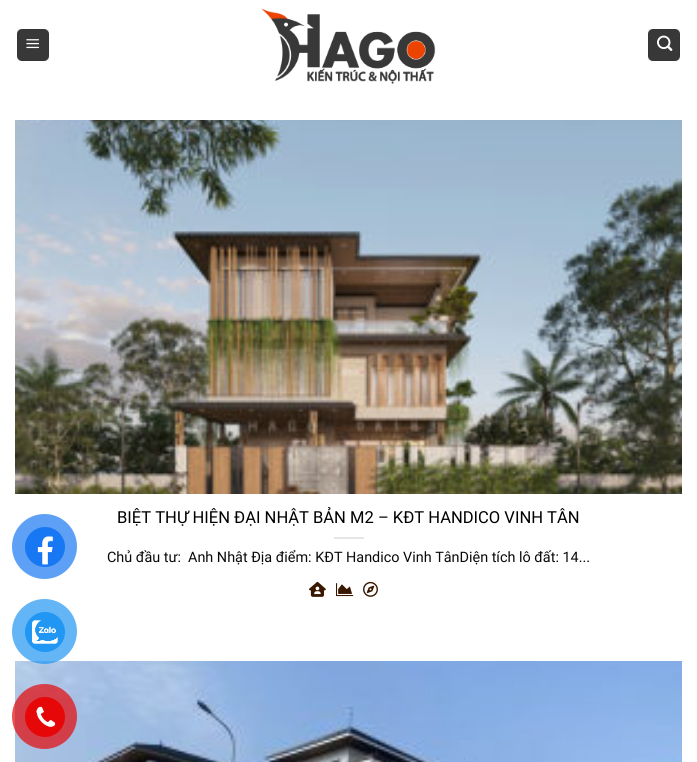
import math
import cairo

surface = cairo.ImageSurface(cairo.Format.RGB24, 697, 762)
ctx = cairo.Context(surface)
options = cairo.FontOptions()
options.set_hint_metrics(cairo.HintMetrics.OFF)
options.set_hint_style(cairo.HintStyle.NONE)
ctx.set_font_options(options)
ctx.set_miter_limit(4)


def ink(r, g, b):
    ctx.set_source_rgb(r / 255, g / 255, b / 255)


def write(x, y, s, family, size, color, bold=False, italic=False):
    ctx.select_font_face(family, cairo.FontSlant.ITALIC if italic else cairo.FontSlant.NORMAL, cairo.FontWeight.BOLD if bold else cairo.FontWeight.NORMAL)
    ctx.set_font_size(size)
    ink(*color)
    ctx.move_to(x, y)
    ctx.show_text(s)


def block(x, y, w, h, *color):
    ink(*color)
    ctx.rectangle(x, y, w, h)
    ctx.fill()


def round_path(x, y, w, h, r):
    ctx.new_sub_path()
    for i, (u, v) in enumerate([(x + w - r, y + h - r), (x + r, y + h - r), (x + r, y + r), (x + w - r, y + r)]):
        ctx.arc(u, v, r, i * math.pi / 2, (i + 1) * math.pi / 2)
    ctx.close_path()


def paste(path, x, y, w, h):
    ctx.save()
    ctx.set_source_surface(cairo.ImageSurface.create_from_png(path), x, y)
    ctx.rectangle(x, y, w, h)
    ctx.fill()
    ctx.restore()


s1 = dict(family="Roboto", size=16.55, color=(0, 0, 0))
s2 = dict(family="Roboto", size=14.4, color=(10, 10, 10))

ink(255, 255, 255)
ctx.paint()
ink(93, 160, 246)
ctx.arc(44.5, 546.5, 32.5, 0, 2 * math.pi)
ctx.fill()
ink(24, 119, 242)
ctx.arc(45, 547, 20, 0, 2 * math.pi)
ctx.fill()
paste("pic1.png", 37, 536, 17, 29)
paste("pic11.png", 15, 661, 667, 101)
ctx.set_source_rgba(0.129, 0.588, 0.953, 0.7)
ctx.arc(44.5, 631.5, 32.5, 0, 2 * math.pi)
ctx.fill()
ink(33, 150, 243)
ctx.arc(45, 632, 20, 0, 2 * math.pi)
ctx.fill()
paste("pic2.png", 32, 620, 26, 24)
ctx.set_source_rgba(0.902, 0.031, 0.031, 0.7)
ctx.arc(44.5, 716.5, 32.5, 0, 2 * math.pi)
ctx.fill()
ink(230, 8, 8)
ctx.arc(45, 717, 20, 0, 2 * math.pi)
ctx.fill()
paste("pic3.png", 36, 706, 20, 21)
ink(56, 56, 56)
round_path(17, 29, 32, 32, 5)
ctx.fill()
ctx.rectangle(17.5, 29.5, 31, 31)
ctx.set_source_rgba(0, 0, 0, 0.05)
ctx.set_line_width(1)
ctx.stroke()
paste("pic4.png", 26, 39, 13, 10)
paste("pic5.png", 261, 8, 175, 76)
ink(56, 56, 56)
round_path(648, 29, 32, 32, 5)
ctx.fill()
ctx.rectangle(648.5, 29.5, 31, 31)
ctx.set_source_rgba(0, 0, 0, 0.05)
ctx.stroke()
paste("pic6.png", 657, 35, 16, 16)
paste("pic7.png", 15, 120, 667, 374)
write(117, 523, "BIỆT THỰ HIỆN ĐẠI NHẬT BẢN M2 – KĐT HANDICO VINH TÂN", **s1)
block(334, 537, 30, 2, 230, 230, 230)
write(107, 562, "Chủ đầu tư:  Anh Nhật Địa điểm: KĐT Handico Vinh TânDiện tích lô đất: 14...", **s2)
paste("pic8.png", 309, 581, 17, 16)
paste("pic9.png", 336, 583, 18, 14)
paste("pic10.png", 363, 581, 15, 16)
surface.write_to_png("screenshot.png")
